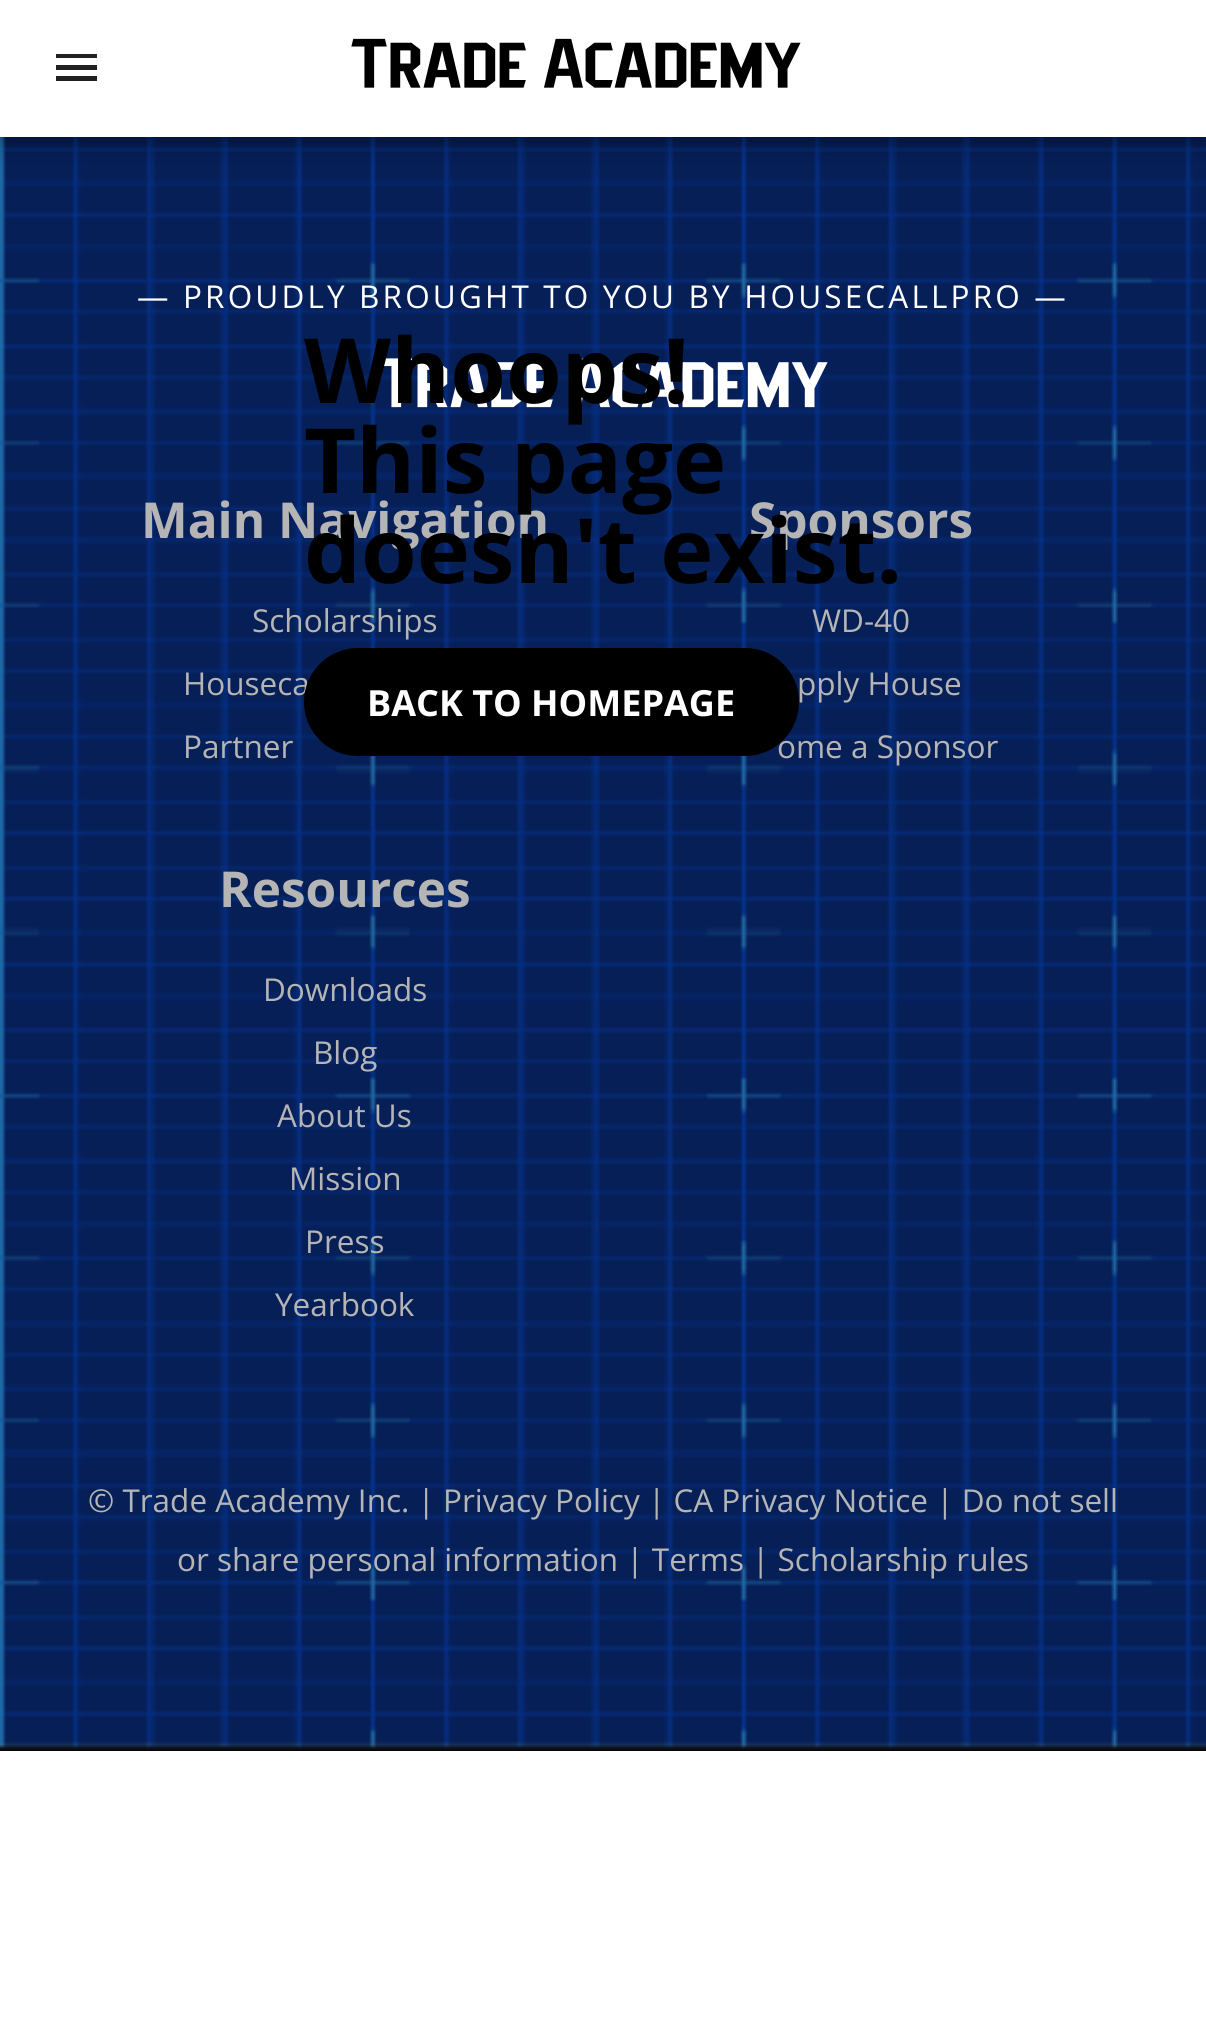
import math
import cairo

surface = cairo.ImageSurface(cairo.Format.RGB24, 1206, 2034)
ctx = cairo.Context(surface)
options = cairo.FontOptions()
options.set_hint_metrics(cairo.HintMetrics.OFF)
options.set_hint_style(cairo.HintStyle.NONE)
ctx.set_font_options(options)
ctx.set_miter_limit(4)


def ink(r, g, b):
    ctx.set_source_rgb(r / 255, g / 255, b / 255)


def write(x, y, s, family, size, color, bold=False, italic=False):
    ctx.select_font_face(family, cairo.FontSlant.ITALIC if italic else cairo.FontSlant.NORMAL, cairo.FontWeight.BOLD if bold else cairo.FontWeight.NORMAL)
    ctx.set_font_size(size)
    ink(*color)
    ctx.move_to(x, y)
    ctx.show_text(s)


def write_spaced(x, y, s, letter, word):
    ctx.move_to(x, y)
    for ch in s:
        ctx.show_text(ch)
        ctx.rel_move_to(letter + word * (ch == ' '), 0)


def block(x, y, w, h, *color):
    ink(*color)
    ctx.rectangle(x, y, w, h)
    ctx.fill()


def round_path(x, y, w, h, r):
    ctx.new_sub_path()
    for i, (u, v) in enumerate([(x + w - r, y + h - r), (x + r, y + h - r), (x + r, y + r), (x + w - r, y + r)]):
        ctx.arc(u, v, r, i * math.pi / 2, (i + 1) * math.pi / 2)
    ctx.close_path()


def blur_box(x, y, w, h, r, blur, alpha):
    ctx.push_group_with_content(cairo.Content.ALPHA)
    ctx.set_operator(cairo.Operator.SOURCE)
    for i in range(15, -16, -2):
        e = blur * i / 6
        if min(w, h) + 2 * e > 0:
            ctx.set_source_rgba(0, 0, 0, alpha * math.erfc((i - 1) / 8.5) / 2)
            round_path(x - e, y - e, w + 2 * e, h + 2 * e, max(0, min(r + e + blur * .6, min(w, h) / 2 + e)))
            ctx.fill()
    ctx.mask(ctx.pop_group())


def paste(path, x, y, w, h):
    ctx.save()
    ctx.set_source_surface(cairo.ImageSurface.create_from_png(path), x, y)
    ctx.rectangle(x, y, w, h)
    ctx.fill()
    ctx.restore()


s1 = dict(family="Open Sans", size=49.5, color=(181, 181, 181), bold=True)
s2 = dict(family="Open Sans", size=31.5, color=(181, 181, 181))
s3 = dict(family="Open Sans", size=90, color=(0, 0, 0), bold=True)
s4 = dict(family="Open Sans", size=36, color=(255, 255, 255), bold=True)

ink(255, 255, 255)
ctx.paint()
block(0, 1741, 1206, 10, 0, 0, 0)
paste("pic2.png", 0, 137, 1206, 1614)
ink(0, 0, 0)
blur_box(0, 2, 1206, 138, 0, 20, 0.12)
blur_box(0, 14, 1206, 137, 0, 11, 0.14)
blur_box(2, 9, 1202, 133, 0, 5.5, 0.2)
block(0, 0, 1206, 137, 255, 255, 255)
ink(33, 33, 33)
ctx.new_path()
ctx.move_to(56, 81)
ctx.line_to(97, 81)
ctx.line_to(97, 76)
ctx.line_to(56, 76)
ctx.close_path()
ctx.move_to(56, 70)
ctx.line_to(97, 70)
ctx.line_to(97, 65)
ctx.line_to(56, 65)
ctx.close_path()
ctx.move_to(56, 54)
ctx.line_to(56, 58)
ctx.line_to(97, 58)
ctx.line_to(97, 54)
ctx.close_path()
ctx.fill()
paste("pic1.png", 351, 38, 450, 50)
ctx.select_font_face("Open Sans")
ctx.set_font_size(31.5)
ink(255, 255, 255)
write_spaced(137, 308, "— PROUDLY BROUGHT TO YOU BY HOUSECALLPRO —", 3.15, 0)
paste("pic3.png", 378, 358, 450, 50)
write(141, 538, "Main Navigation", **s1)
write(252, 632, "Scholarships", **s2)
write(183, 695, "Houseca", **s2)
write(183, 758, "Partner", **s2)
write(749, 538, "Sponsors", **s1)
write(812, 632, "WD-40", **s2)
write(797, 695, "pply House", **s2)
write(777, 758, "ome a Sponsor", **s2)
write(219, 907, "Resources", **s1)
write(263, 1001, "Downloads", **s2)
write(313, 1064, "Blog", **s2)
write(277, 1127, "About Us", **s2)
write(289, 1190, "Mission", **s2)
write(305, 1253, "Press", **s2)
write(275, 1316, "Yearbook", **s2)
write(88, 1512, "© Trade Academy Inc. | Privacy Policy | CA Privacy Notice | Do not sell", **s2)
write(177, 1571, "or share personal information | Terms | Scholarship rules", **s2)
write(304, 403, "Whoops!", **s3)
write(304, 493, "This page", **s3)
write(304, 583, "doesn't exist.", **s3)
round_path(308.5, 652.5, 486, 99, 49.5)
ctx.fill_preserve()
ctx.set_line_width(9)
ctx.stroke()
write(367, 716, "BACK TO HOMEPAGE", **s4)
surface.write_to_png("screenshot.png")
